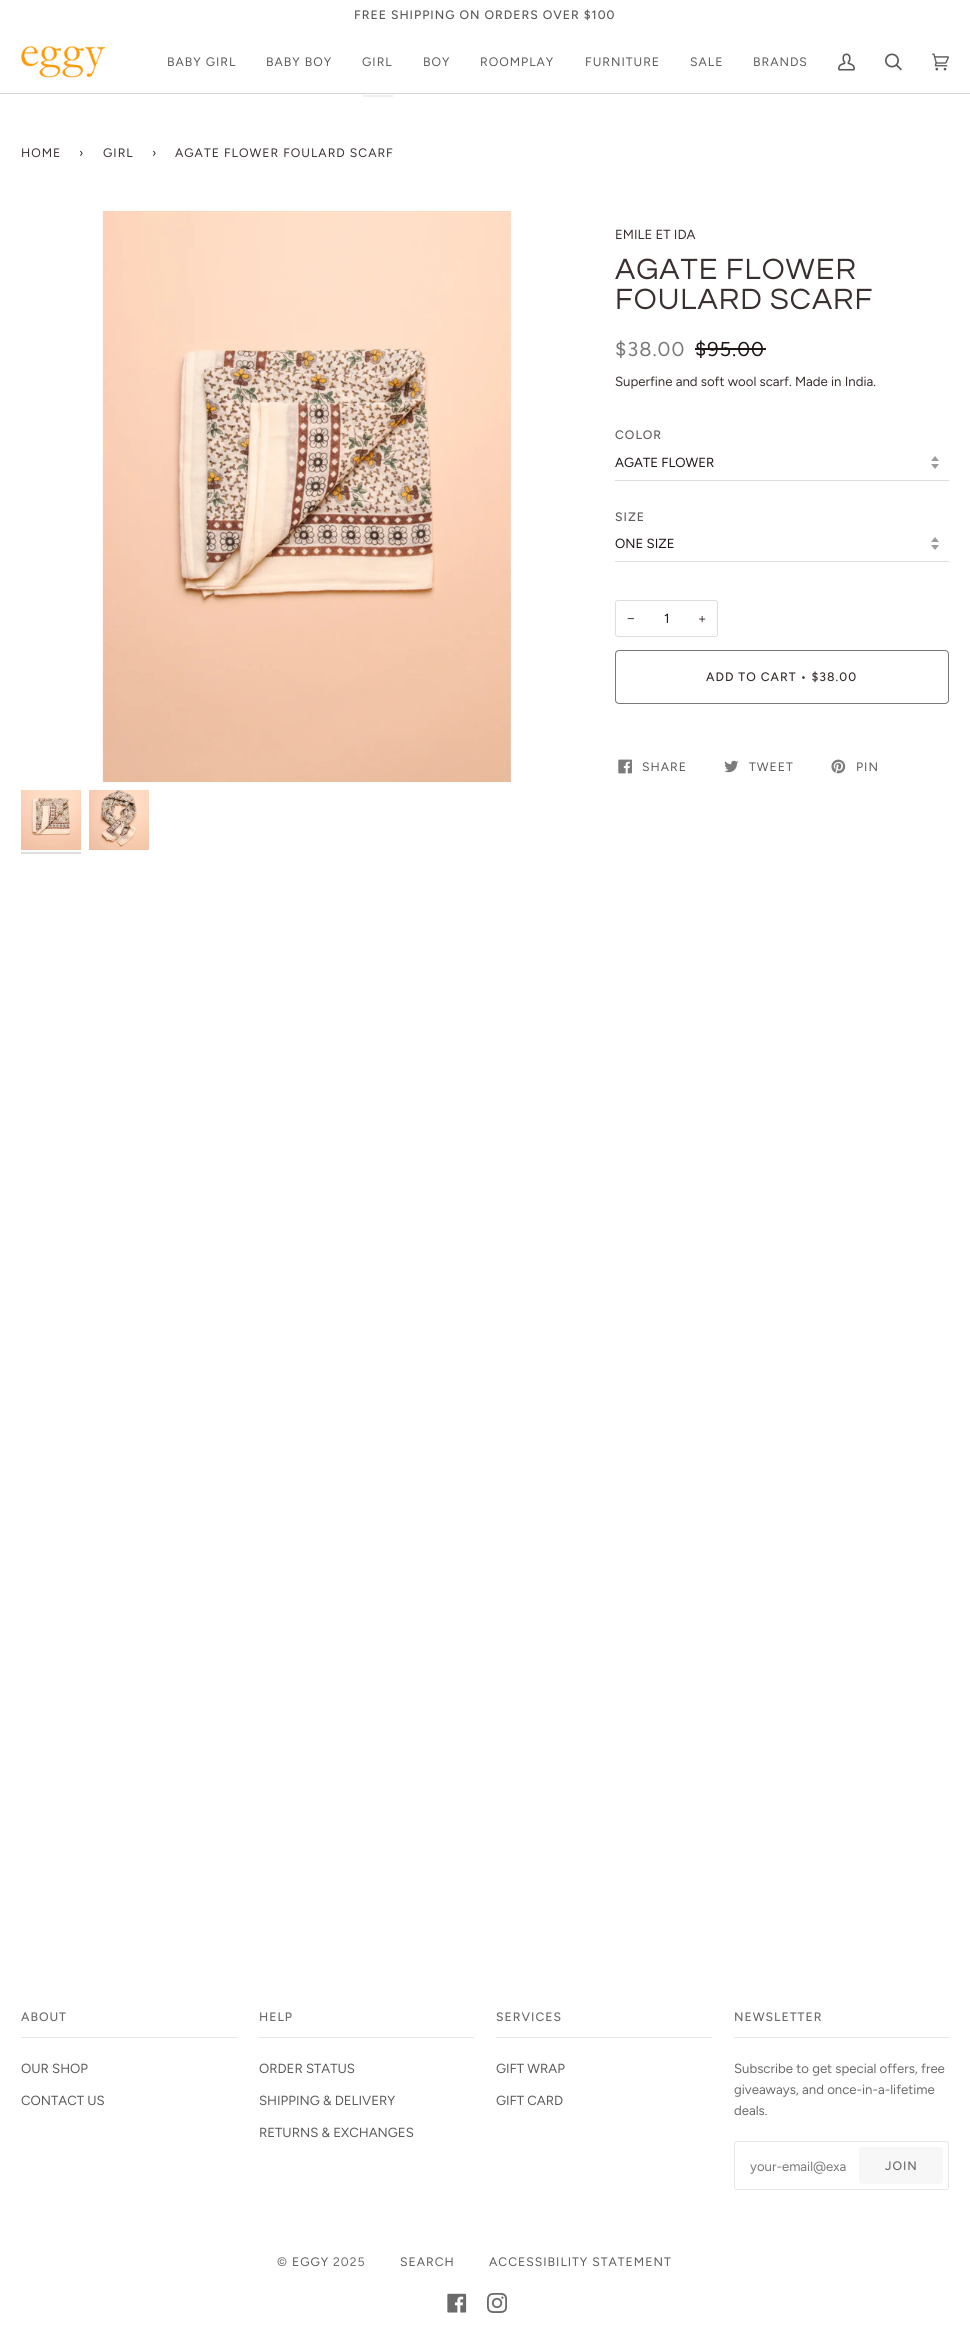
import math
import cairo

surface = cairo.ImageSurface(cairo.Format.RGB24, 970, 2345)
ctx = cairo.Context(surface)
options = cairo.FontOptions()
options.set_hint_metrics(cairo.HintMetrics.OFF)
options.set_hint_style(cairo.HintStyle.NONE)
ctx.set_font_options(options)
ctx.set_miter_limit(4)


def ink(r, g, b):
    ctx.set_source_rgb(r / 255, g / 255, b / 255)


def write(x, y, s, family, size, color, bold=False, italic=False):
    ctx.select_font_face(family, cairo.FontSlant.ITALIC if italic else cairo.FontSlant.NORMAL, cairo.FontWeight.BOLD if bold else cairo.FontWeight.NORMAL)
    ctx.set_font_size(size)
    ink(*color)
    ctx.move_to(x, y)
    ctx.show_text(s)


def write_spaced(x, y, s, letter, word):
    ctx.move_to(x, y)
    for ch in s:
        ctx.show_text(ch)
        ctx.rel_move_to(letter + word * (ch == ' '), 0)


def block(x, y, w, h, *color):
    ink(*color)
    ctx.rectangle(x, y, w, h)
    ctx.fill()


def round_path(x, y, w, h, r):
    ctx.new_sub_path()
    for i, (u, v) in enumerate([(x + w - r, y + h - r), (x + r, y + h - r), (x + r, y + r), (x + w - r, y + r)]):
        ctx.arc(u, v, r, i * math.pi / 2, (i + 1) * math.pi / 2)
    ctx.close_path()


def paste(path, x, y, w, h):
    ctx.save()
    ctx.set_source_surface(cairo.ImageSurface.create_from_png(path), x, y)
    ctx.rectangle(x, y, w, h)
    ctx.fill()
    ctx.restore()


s1 = dict(family="Figtree", size=13.2, color=(58, 47, 47))
s2 = dict(family="Figtree", size=13.2, color=(31, 22, 22))
s3 = dict(family="Liberation Sans", size=13.2, color=(58, 47, 47))
s4 = dict(family="Figtree", size=13.2, color=(91, 90, 90))
s5 = dict(family="Figtree", size=13.2, color=(107, 107, 107))
s6 = dict(family="Figtree", size=13.2, color=(121, 120, 120))

ink(255, 255, 255)
ctx.paint()
ctx.select_font_face("Figtree Medium")
ctx.set_font_size(12.25)
ink(91, 90, 90)
write_spaced(354, 19, "FREE SHIPPING ON ORDERS OVER $100", 1, 0)
block(0, 93, 970, 1, 215, 211, 211)
paste("pic1.png", 21, 46, 85, 32)
ctx.select_font_face("Figtree")
ink(91, 90, 90)
write_spaced(167, 66, "BABY GIRL", 1, 0)
write_spaced(266, 66, "BABY BOY", 1, 0)
write_spaced(362, 66, "GIRL", 1, 0)
write_spaced(423, 66, "BOY", 1, 0)
write_spaced(480, 66, "ROOMPLAY", 1, 0)
write_spaced(585, 66, "FURNITURE", 1, 0)
write_spaced(690, 66, "SALE", 1, 0)
write_spaced(753, 66, "BRANDS", 1, 0)
block(363, 95, 30, 2, 239, 239, 239)
paste("pic2.png", 838, 53, 17, 18)
paste("pic3.png", 885, 53, 17, 18)
paste("pic4.png", 932, 53, 17, 18)
ink(58, 47, 47)
write_spaced(21, 157, "HOME", 1, 0)
write_spaced(79, 157, "›", 1, 0)
write_spaced(103, 157, "GIRL", 1, 0)
write_spaced(152, 157, "›", 1, 0)
write_spaced(175, 157, "AGATE FLOWER FOULARD SCARF", 1, 0)
paste("pic5.png", 102, 211, 409, 571)
paste("pic6.png", 21, 790, 60, 60)
block(21, 852, 60, 2, 222, 222, 222)
paste("pic7.png", 89, 790, 60, 60)
write(615, 239, "EMILE ET IDA", **s1)
ctx.select_font_face("Questrial")
ctx.set_font_size(30.5)
write_spaced(615, 279, "AGATE FLOWER", 1, 0)
write_spaced(615, 309, "FOULARD SCARF", 1, 0)
ctx.select_font_face("Figtree")
ctx.set_font_size(20)
ink(121, 120, 120)
write_spaced(615, 356, "$38.00", 1, 0)
ink(31, 22, 22)
write_spaced(695, 356, "$95.00", 1, 0)
block(695, 348, 71, 2, 31, 22, 22)
write(615, 386, "Superfine and soft wool scarf. Made in India.", **s1)
ctx.select_font_face("Figtree Medium")
ctx.set_font_size(12.25)
ink(98, 92, 92)
write_spaced(615, 439, "COLOR", 1, 0)
paste("pic8.png", 931, 456, 8, 13)
block(615, 480, 334, 1, 222, 222, 222)
write(615, 467, "AGATE FLOWER", **s2)
ctx.select_font_face("Figtree Medium")
ctx.set_font_size(12.25)
ink(98, 92, 92)
write_spaced(615, 521, "SIZE", 1, 0)
paste("pic8.png", 931, 537, 8, 13)
block(615, 561, 334, 1, 222, 222, 222)
write(615, 548, "ONE SIZE", **s2)
round_path(615.5, 600.5, 102, 36, 2.5)
ink(222, 222, 222)
ctx.set_line_width(1)
ctx.stroke()
write(627, 623, "−", **s3)
write(664, 623, "1", **s2)
write(698, 623, "+", **s1)
round_path(615.5, 650.5, 333, 53, 3.5)
ink(121, 120, 120)
ctx.stroke()
ctx.select_font_face("Figtree Medium")
ctx.set_font_size(12.25)
ink(58, 47, 47)
write_spaced(706, 681, "ADD TO CART • $38.00", 1, 0)
paste("pic9.png", 618, 759, 14, 15)
ctx.select_font_face("Figtree")
ink(91, 90, 90)
write_spaced(642, 771, "SHARE", 1, 0)
paste("pic10.png", 724, 760, 15, 13)
write_spaced(749, 771, "TWEET", 1, 0)
paste("pic11.png", 831, 759, 15, 15)
write_spaced(856, 771, "PIN", 1, 0)
ctx.select_font_face("Figtree Medium")
ink(107, 107, 107)
write_spaced(21, 2021, "ABOUT", 1, 0)
block(21, 2037, 216, 1, 230, 230, 230)
write(21, 2073, "OUR SHOP", **s4)
write(21, 2105, "CONTACT US", **s4)
ctx.select_font_face("Figtree Medium")
ctx.set_font_size(12.25)
ink(107, 107, 107)
write_spaced(259, 2021, "HELP", 1, 0)
block(259, 2037, 215, 1, 230, 230, 230)
write(259, 2073, "ORDER STATUS", **s4)
write(259, 2105, "SHIPPING & DELIVERY", **s4)
write(259, 2137, "RETURNS & EXCHANGES", **s4)
ctx.select_font_face("Figtree Medium")
ctx.set_font_size(12.25)
ink(107, 107, 107)
write_spaced(496, 2021, "SERVICES", 1, 0)
block(496, 2037, 216, 1, 230, 230, 230)
write(496, 2073, "GIFT WRAP", **s4)
write(496, 2105, "GIFT CARD", **s4)
ctx.select_font_face("Figtree Medium")
ctx.set_font_size(12.25)
ink(107, 107, 107)
write_spaced(734, 2021, "NEWSLETTER", 1, 0)
block(734, 2037, 215, 1, 230, 230, 230)
write(734, 2073, "Subscribe to get special offers, free", **s5)
write(734, 2094, "giveaways, and once-in-a-lifetime", **s5)
write(734, 2115, "deals.", **s5)
round_path(734.5, 2141.5, 214, 48, 2.5)
ink(230, 230, 230)
ctx.stroke()
write(750, 2171, "your-email@exa", **s6)
ink(247, 247, 247)
round_path(859, 2147, 84, 37, 3)
ctx.fill()
ctx.select_font_face("Figtree Medium")
ctx.set_font_size(12.25)
ink(107, 107, 107)
write_spaced(885, 2170, "JOIN", 1, 0)
ctx.select_font_face("Figtree")
write_spaced(277, 2266, "©", 1, 0)
ink(91, 90, 90)
write_spaced(292, 2266, "EGGY", 1, 0)
ink(107, 107, 107)
write_spaced(333, 2266, "2025", 1, 0)
ink(91, 90, 90)
write_spaced(400, 2266, "SEARCH", 1, 0)
write_spaced(489, 2266, "ACCESSIBILITY STATEMENT", 1, 0)
paste("pic12.png", 447, 2293, 20, 20)
paste("pic13.png", 487, 2293, 20, 20)
surface.write_to_png("screenshot.png")
